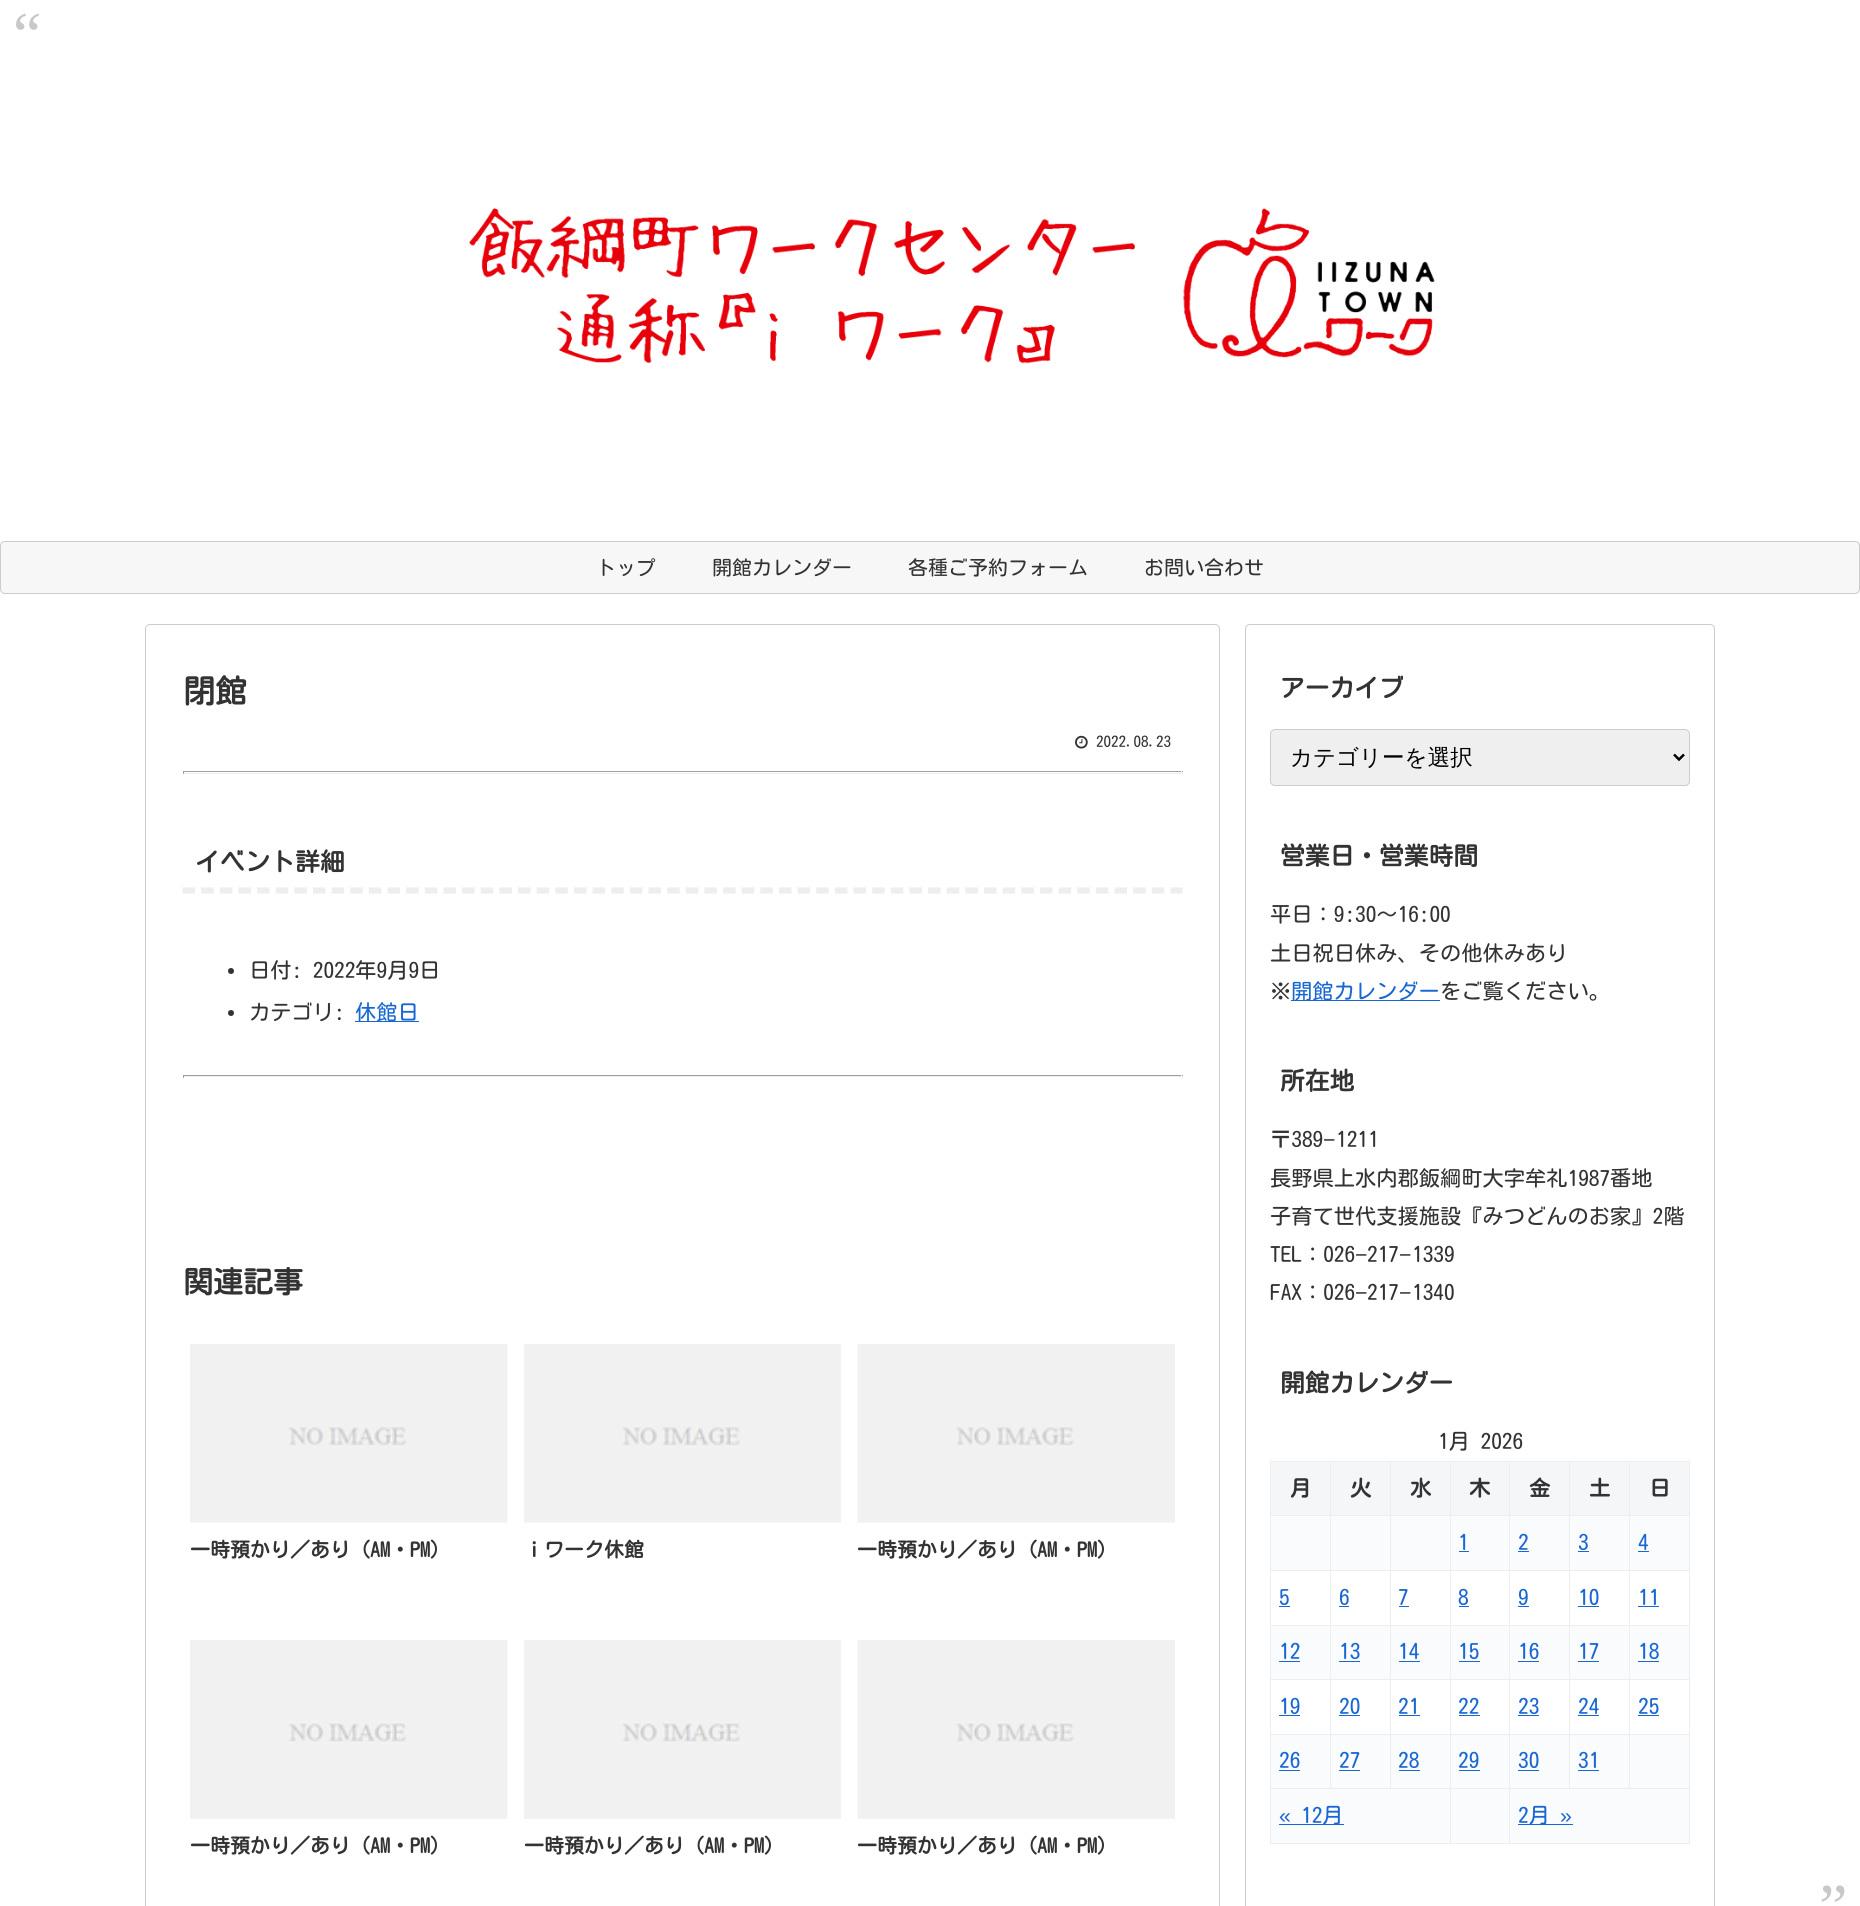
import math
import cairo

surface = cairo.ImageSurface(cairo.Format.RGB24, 1860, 1906)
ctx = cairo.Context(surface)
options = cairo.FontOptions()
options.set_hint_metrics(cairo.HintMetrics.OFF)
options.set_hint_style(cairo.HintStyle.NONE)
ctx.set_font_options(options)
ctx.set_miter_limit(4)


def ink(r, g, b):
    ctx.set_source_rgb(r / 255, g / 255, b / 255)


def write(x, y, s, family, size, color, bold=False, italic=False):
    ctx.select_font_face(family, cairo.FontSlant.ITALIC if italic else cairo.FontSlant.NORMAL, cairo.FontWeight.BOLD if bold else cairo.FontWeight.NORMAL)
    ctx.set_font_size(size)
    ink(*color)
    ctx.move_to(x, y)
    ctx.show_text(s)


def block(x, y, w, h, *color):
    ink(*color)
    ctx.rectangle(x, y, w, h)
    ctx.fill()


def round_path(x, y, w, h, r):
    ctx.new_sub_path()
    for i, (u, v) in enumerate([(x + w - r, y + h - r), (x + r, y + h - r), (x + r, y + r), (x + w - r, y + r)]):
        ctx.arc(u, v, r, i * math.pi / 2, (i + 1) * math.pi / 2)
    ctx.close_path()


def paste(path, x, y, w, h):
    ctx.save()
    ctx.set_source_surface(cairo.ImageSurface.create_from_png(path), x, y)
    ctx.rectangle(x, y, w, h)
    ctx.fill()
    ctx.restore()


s1 = dict(family="Liberation Serif", size=64, color=(200, 200, 200))
s2 = dict(family="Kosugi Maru", size=24.75, color=(51, 51, 51), bold=True)
s3 = dict(family="WenQuanYi Zen Hei Medium", size=22.5, color=(0, 0, 0))
s4 = dict(family="Kosugi Maru", size=21.25, color=(51, 51, 51))
s5 = dict(family="Kosugi Maru", size=21.25, color=(25, 103, 210))
s6 = dict(family="Liberation Sans", size=21.25, color=(51, 51, 51))
s7 = dict(family="Kosugi Maru", size=21.25, color=(51, 51, 51), bold=True)
s8 = dict(family="Liberation Sans", size=21.25, color=(25, 103, 210))
s9 = dict(family="Kosugi Maru", size=32, color=(51, 51, 51), bold=True)
s10 = dict(family="Kosugi Maru", size=15, color=(51, 51, 51))
s11 = dict(family="Kosugi Maru", size=25, color=(51, 51, 51), bold=True)
s12 = dict(family="Kosugi Maru", size=30, color=(51, 51, 51), bold=True)
s13 = dict(family="Kosugi Maru", size=20, color=(51, 51, 51), bold=True)
s14 = dict(family="Kosugi Maru", size=20, color=(51, 51, 51))

ink(255, 255, 255)
ctx.paint()
round_path(1245.5, 624.5, 469, 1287, 4.5)
ink(204, 204, 204)
ctx.set_line_width(1)
ctx.stroke()
write(13, 56, "“", **s1)
write(1819, 1928, "”", **s1)
write(1280, 697, "アーカイブ", **s2)
ink(239, 239, 239)
round_path(1270.5, 729.5, 419, 56, 4.5)
ctx.fill_preserve()
ink(204, 204, 204)
ctx.stroke()
ctx.new_path()
ctx.move_to(1674, 754.5)
ctx.line_to(1679, 759.5)
ctx.line_to(1684, 754.5)
ink(0, 0, 0)
ctx.set_line_width(2.5)
ctx.stroke()
write(1290, 765, "カテゴリーを選択", **s3)
write(1280, 865, "営業日・営業時間", **s2)
write(1270, 922, "平日：9:30〜16:00", **s4)
write(1270, 961, "土日祝日休み、その他休みあり", **s4)
write(1270, 999, "※", **s4)
block(1291, 1000, 149, 1, 25, 103, 210)
write(1291, 999, "開館カレンダー", **s5)
write(1440, 999, "をご覧ください。", **s4)
write(1280, 1090, "所在地", **s2)
write(1270, 1147, "〒389", **s4)
write(1323, 1147, "−", **s6)
write(1336, 1147, "1211", **s4)
write(1270, 1186, "長野県上水内郡飯綱町大字牟礼1987番地", **s4)
write(1270, 1224, "子育て世代支援施設『みつどんのお家』2階", **s4)
write(1270, 1262, "TEL：026", **s4)
write(1355, 1262, "−", **s6)
write(1367, 1262, "217", **s4)
write(1399, 1262, "−", **s6)
write(1412, 1262, "1339", **s4)
write(1270, 1300, "FAX：026", **s4)
write(1355, 1300, "−", **s6)
write(1367, 1300, "217", **s4)
write(1399, 1300, "−", **s6)
write(1412, 1300, "1340", **s4)
write(1280, 1392, "開館カレンダー", **s2)
write(1438, 1449, "1月 2026", **s4)
block(1271, 1462, 59, 53, 245, 246, 247)
block(1629, 1461, 61, 1, 238, 238, 238)
block(1629, 1515, 61, 1, 238, 238, 238)
block(1271, 1516, 418, 54, 250, 251, 252)
block(1629, 1570, 61, 1, 238, 238, 238)
block(1629, 1625, 61, 1, 238, 238, 238)
block(1271, 1626, 418, 53, 250, 251, 252)
block(1629, 1679, 61, 1, 238, 238, 238)
block(1629, 1734, 61, 1, 238, 238, 238)
block(1271, 1735, 418, 53, 250, 251, 252)
block(1509, 1788, 181, 1, 238, 238, 238)
block(1629, 1734, 1, 55, 238, 238, 238)
block(1569, 1734, 61, 1, 238, 238, 238)
block(1629, 1679, 1, 56, 238, 238, 238)
block(1569, 1679, 61, 1, 238, 238, 238)
block(1629, 1625, 1, 55, 238, 238, 238)
block(1569, 1625, 61, 1, 238, 238, 238)
block(1629, 1570, 1, 56, 238, 238, 238)
block(1569, 1570, 61, 1, 238, 238, 238)
block(1629, 1515, 1, 56, 238, 238, 238)
block(1569, 1515, 61, 1, 238, 238, 238)
block(1629, 1461, 1, 55, 238, 238, 238)
block(1569, 1461, 61, 1, 238, 238, 238)
block(1569, 1734, 1, 55, 238, 238, 238)
block(1509, 1734, 61, 1, 238, 238, 238)
block(1569, 1679, 1, 56, 238, 238, 238)
block(1509, 1679, 61, 1, 238, 238, 238)
block(1569, 1625, 1, 55, 238, 238, 238)
block(1509, 1625, 61, 1, 238, 238, 238)
block(1569, 1570, 1, 56, 238, 238, 238)
block(1509, 1570, 61, 1, 238, 238, 238)
block(1569, 1515, 1, 56, 238, 238, 238)
block(1509, 1515, 61, 1, 238, 238, 238)
block(1569, 1461, 1, 55, 238, 238, 238)
block(1509, 1461, 61, 1, 238, 238, 238)
block(1271, 1789, 418, 54, 250, 251, 252)
block(1689, 1788, 1, 56, 238, 238, 238)
block(1509, 1843, 181, 1, 238, 238, 238)
block(1509, 1788, 1, 56, 238, 238, 238)
block(1450, 1788, 60, 1, 238, 238, 238)
block(1509, 1734, 1, 55, 238, 238, 238)
block(1450, 1734, 60, 1, 238, 238, 238)
block(1509, 1679, 1, 56, 238, 238, 238)
block(1450, 1679, 60, 1, 238, 238, 238)
block(1509, 1625, 1, 55, 238, 238, 238)
block(1450, 1625, 60, 1, 238, 238, 238)
block(1509, 1570, 1, 56, 238, 238, 238)
block(1450, 1570, 60, 1, 238, 238, 238)
block(1509, 1515, 1, 56, 238, 238, 238)
block(1450, 1515, 60, 1, 238, 238, 238)
block(1509, 1461, 1, 55, 238, 238, 238)
block(1450, 1461, 60, 1, 238, 238, 238)
block(1450, 1843, 60, 1, 238, 238, 238)
block(1450, 1788, 1, 56, 238, 238, 238)
block(1270, 1788, 181, 1, 238, 238, 238)
block(1450, 1734, 1, 55, 238, 238, 238)
block(1390, 1734, 61, 1, 238, 238, 238)
block(1450, 1679, 1, 56, 238, 238, 238)
block(1390, 1679, 61, 1, 238, 238, 238)
block(1450, 1625, 1, 55, 238, 238, 238)
block(1390, 1625, 61, 1, 238, 238, 238)
block(1450, 1570, 1, 56, 238, 238, 238)
block(1390, 1570, 61, 1, 238, 238, 238)
block(1450, 1515, 1, 56, 238, 238, 238)
block(1390, 1515, 61, 1, 238, 238, 238)
block(1450, 1461, 1, 55, 238, 238, 238)
block(1390, 1461, 61, 1, 238, 238, 238)
block(1390, 1734, 1, 55, 238, 238, 238)
block(1330, 1734, 61, 1, 238, 238, 238)
block(1390, 1679, 1, 56, 238, 238, 238)
block(1330, 1679, 61, 1, 238, 238, 238)
block(1390, 1625, 1, 55, 238, 238, 238)
block(1330, 1625, 61, 1, 238, 238, 238)
block(1390, 1570, 1, 56, 238, 238, 238)
block(1330, 1570, 61, 1, 238, 238, 238)
block(1390, 1515, 1, 56, 238, 238, 238)
block(1330, 1515, 61, 1, 238, 238, 238)
block(1390, 1461, 1, 55, 238, 238, 238)
block(1330, 1461, 61, 1, 238, 238, 238)
block(1330, 1734, 1, 55, 238, 238, 238)
block(1270, 1734, 61, 1, 238, 238, 238)
block(1330, 1679, 1, 56, 238, 238, 238)
block(1270, 1679, 61, 1, 238, 238, 238)
block(1330, 1625, 1, 55, 238, 238, 238)
block(1270, 1625, 61, 1, 238, 238, 238)
block(1330, 1570, 1, 56, 238, 238, 238)
block(1270, 1570, 61, 1, 238, 238, 238)
block(1330, 1515, 1, 56, 238, 238, 238)
block(1270, 1515, 61, 1, 238, 238, 238)
block(1330, 1461, 1, 55, 238, 238, 238)
block(1270, 1461, 61, 1, 238, 238, 238)
block(1270, 1843, 181, 1, 238, 238, 238)
block(1270, 1788, 1, 56, 238, 238, 238)
block(1270, 1734, 1, 55, 238, 238, 238)
block(1270, 1679, 1, 56, 238, 238, 238)
block(1270, 1625, 1, 55, 238, 238, 238)
block(1270, 1570, 1, 56, 238, 238, 238)
block(1270, 1515, 1, 56, 238, 238, 238)
block(1270, 1461, 1, 55, 238, 238, 238)
write(1290, 1496, "月", **s7)
block(1331, 1462, 59, 53, 245, 246, 247)
write(1350, 1496, "火", **s7)
block(1391, 1462, 59, 53, 245, 246, 247)
write(1410, 1496, "水", **s7)
block(1451, 1462, 58, 53, 245, 246, 247)
write(1469, 1496, "木", **s7)
block(1510, 1462, 59, 53, 245, 246, 247)
write(1529, 1496, "金", **s7)
block(1570, 1462, 59, 53, 245, 246, 247)
write(1589, 1496, "土", **s7)
block(1630, 1462, 59, 53, 245, 246, 247)
block(1689, 1734, 1, 55, 238, 238, 238)
block(1689, 1679, 1, 56, 238, 238, 238)
block(1689, 1625, 1, 55, 238, 238, 238)
block(1689, 1570, 1, 56, 238, 238, 238)
block(1689, 1515, 1, 56, 238, 238, 238)
block(1689, 1461, 1, 55, 238, 238, 238)
write(1649, 1496, "日", **s7)
write(1458, 1550, "1", **s5)
block(1459, 1551, 10, 1, 25, 103, 210)
write(1518, 1550, "2", **s5)
block(1518, 1551, 11, 1, 25, 103, 210)
write(1578, 1550, "3", **s5)
block(1578, 1551, 11, 1, 25, 103, 210)
write(1638, 1550, "4", **s5)
block(1638, 1551, 11, 1, 25, 103, 210)
write(1279, 1605, "5", **s5)
block(1279, 1606, 11, 1, 25, 103, 210)
write(1339, 1605, "6", **s5)
block(1339, 1606, 10, 1, 25, 103, 210)
write(1398, 1605, "7", **s5)
block(1399, 1606, 10, 1, 25, 103, 210)
write(1458, 1605, "8", **s5)
block(1459, 1606, 10, 1, 25, 103, 210)
write(1518, 1605, "9", **s5)
block(1518, 1606, 11, 1, 25, 103, 210)
write(1578, 1605, "10", **s5)
block(1578, 1606, 21, 1, 25, 103, 210)
write(1638, 1605, "11", **s5)
block(1638, 1606, 21, 1, 25, 103, 210)
write(1279, 1659, "12", **s5)
block(1279, 1661, 21, 1, 25, 103, 210)
write(1339, 1659, "13", **s5)
block(1339, 1661, 21, 1, 25, 103, 210)
write(1398, 1659, "14", **s5)
block(1399, 1661, 21, 1, 25, 103, 210)
write(1458, 1659, "15", **s5)
block(1459, 1661, 21, 1, 25, 103, 210)
write(1518, 1659, "16", **s5)
block(1518, 1661, 21, 1, 25, 103, 210)
write(1578, 1659, "17", **s5)
block(1578, 1661, 21, 1, 25, 103, 210)
write(1638, 1659, "18", **s5)
block(1638, 1661, 21, 1, 25, 103, 210)
write(1279, 1714, "19", **s5)
block(1279, 1715, 21, 1, 25, 103, 210)
write(1339, 1714, "20", **s5)
block(1339, 1715, 21, 1, 25, 103, 210)
write(1398, 1714, "21", **s5)
block(1399, 1715, 21, 1, 25, 103, 210)
write(1458, 1714, "22", **s5)
block(1459, 1715, 21, 1, 25, 103, 210)
write(1518, 1714, "23", **s5)
block(1518, 1715, 21, 1, 25, 103, 210)
write(1578, 1714, "24", **s5)
block(1578, 1715, 21, 1, 25, 103, 210)
write(1638, 1714, "25", **s5)
block(1638, 1715, 21, 1, 25, 103, 210)
write(1279, 1768, "26", **s5)
block(1279, 1770, 21, 1, 25, 103, 210)
write(1339, 1768, "27", **s5)
block(1339, 1770, 21, 1, 25, 103, 210)
write(1398, 1768, "28", **s5)
block(1399, 1770, 21, 1, 25, 103, 210)
write(1458, 1768, "29", **s5)
block(1459, 1770, 21, 1, 25, 103, 210)
write(1518, 1768, "30", **s5)
block(1518, 1770, 21, 1, 25, 103, 210)
write(1578, 1768, "31", **s5)
block(1578, 1770, 21, 1, 25, 103, 210)
write(1279, 1823, "«", **s8)
block(1279, 1824, 65, 1, 25, 103, 210)
write(1301, 1823, "12月", **s5)
block(1518, 1824, 55, 1, 25, 103, 210)
write(1518, 1823, "2月", **s5)
write(1560, 1823, "»", **s8)
round_path(145.5, 624.5, 1074, 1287, 4.5)
ink(204, 204, 204)
ctx.set_line_width(1)
ctx.stroke()
write(183, 703, "閉館", **s9)
paste("pic1.png", 1075, 735, 13, 14)
write(1096, 747, "2022.08.23", **s10)
block(183, 771, 1000, 1, 159, 159, 159)
block(1181, 771, 1, 3, 238, 238, 238)
block(183, 773, 1000, 1, 238, 238, 238)
block(183, 771, 1, 3, 159, 159, 159)
ctx.new_path()
ctx.move_to(182.5, 890.5)
ctx.line_to(1182.5, 890.5)
ink(238, 238, 238)
ctx.set_line_width(6.2)
ctx.set_dash([12.5, 6.14])
ctx.stroke()
write(195, 871, "イベント詳細", **s11)
ctx.new_path()
ctx.arc(231, 971, 3, 0, 2 * math.pi)
ctx.fill()
write(249, 978, "日付: 2022年9月9日", **s4)
ctx.new_path()
ctx.arc(231, 1013, 3, 0, 2 * math.pi)
ctx.fill()
write(249, 1020, "カテゴリ:", **s4)
block(355, 1021, 64, 1, 25, 103, 210)
write(355, 1020, "休館日", **s5)
block(183, 1075, 1000, 1, 159, 159, 159)
block(1181, 1075, 1, 3, 238, 238, 238)
block(183, 1076, 1000, 1, 238, 238, 238)
block(183, 1075, 1, 3, 159, 159, 159)
write(183, 1293, "関連記事", **s12)
paste("pic2.png", 190, 1344, 318, 179)
write(190, 1557, "一時預かり／あり（AM・PM）", **s13)
paste("pic3.png", 524, 1344, 317, 179)
write(524, 1557, "ｉワーク休館", **s13)
paste("pic4.png", 857, 1344, 318, 179)
write(857, 1557, "一時預かり／あり（AM・PM）", **s13)
paste("pic5.png", 190, 1640, 318, 179)
write(190, 1853, "一時預かり／あり（AM・PM）", **s13)
paste("pic6.png", 524, 1640, 317, 179)
write(524, 1853, "一時預かり／あり（AM・PM）", **s13)
paste("pic7.png", 857, 1640, 318, 179)
write(857, 1853, "一時預かり／あり（AM・PM）", **s13)
paste("pic8.png", 468, 208, 967, 156)
ink(247, 247, 247)
round_path(0.5, 541.5, 1859, 52, 4.5)
ctx.fill_preserve()
ink(204, 204, 204)
ctx.set_line_width(1)
ctx.set_dash([])
ctx.stroke()
write(596, 575, "トップ", **s14)
write(712, 575, "開館カレンダー", **s14)
write(908, 575, "各種ご予約フォーム", **s14)
write(1144, 575, "お問い合わせ", **s14)
surface.write_to_png("screenshot.png")
